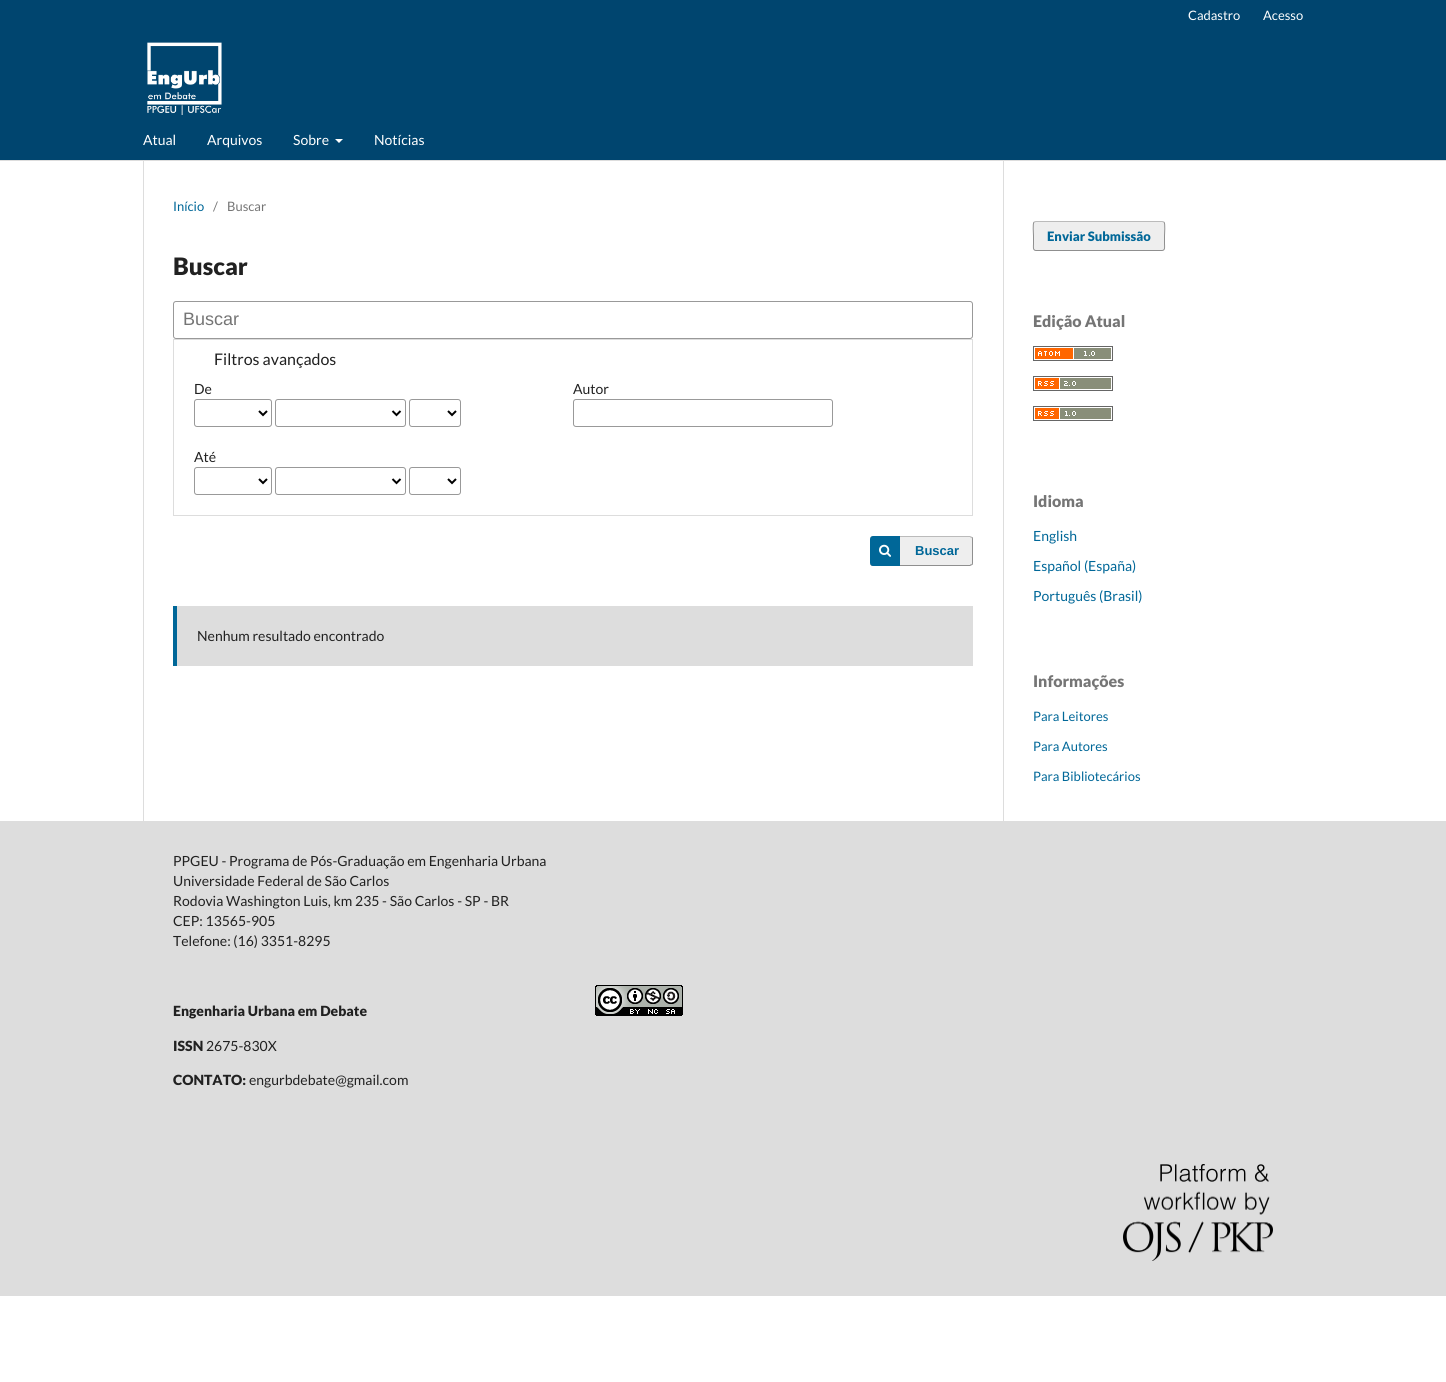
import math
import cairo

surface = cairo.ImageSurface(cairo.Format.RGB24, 1446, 1382)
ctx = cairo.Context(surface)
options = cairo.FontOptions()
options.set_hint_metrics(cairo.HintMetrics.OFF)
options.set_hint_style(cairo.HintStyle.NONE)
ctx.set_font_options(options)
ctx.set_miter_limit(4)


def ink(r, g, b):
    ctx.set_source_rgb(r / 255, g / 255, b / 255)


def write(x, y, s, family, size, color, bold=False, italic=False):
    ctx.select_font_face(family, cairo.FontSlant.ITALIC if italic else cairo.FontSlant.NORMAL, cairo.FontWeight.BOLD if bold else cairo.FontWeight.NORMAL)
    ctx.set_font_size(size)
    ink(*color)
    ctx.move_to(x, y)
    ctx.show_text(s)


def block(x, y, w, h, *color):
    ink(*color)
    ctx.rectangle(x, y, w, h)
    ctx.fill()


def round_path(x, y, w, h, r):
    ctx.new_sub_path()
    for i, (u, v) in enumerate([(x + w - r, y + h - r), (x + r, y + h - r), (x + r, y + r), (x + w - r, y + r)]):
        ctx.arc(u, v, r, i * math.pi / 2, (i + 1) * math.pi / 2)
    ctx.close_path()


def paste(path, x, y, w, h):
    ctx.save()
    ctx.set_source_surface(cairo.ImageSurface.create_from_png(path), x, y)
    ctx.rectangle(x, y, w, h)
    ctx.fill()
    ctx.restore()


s1 = dict(family="Lato", size=13, color=(255, 255, 255))
s2 = dict(family="Lato", size=14, color=(255, 255, 255))
s3 = dict(family="Lato", size=13, color=(0, 103, 152))
s4 = dict(family="Lato", size=13, color=(117, 117, 117))
s5 = dict(family="Lato Black", size=24, color=(33, 33, 33))
s6 = dict(family="Liberation Sans", size=18, color=(117, 117, 117))
s7 = dict(family="Lato", size=16, color=(33, 33, 33))
s8 = dict(family="Lato", size=14, color=(33, 33, 33))
s9 = dict(family="Liberation Sans", size=13, color=(0, 103, 152), bold=True)
s10 = dict(family="Lato Black", size=13, color=(0, 103, 152))
s11 = dict(family="Lato Black", size=16, color=(117, 117, 117))
s12 = dict(family="Lato", size=14, color=(0, 103, 152))
s13 = dict(family="Lato Black", size=14, color=(33, 33, 33))

ink(255, 255, 255)
ctx.paint()
block(0, 0, 1446, 160, 0, 69, 111)
block(0, 160, 1446, 1, 221, 221, 221)
write(1188, 20, "Cadastro", **s1)
write(1263, 20, "Acesso", **s1)
write(143, 145, "Atual", **s2)
write(207, 145, "Arquivos", **s2)
write(293, 145, "Sobre", **s2)
ctx.new_path()
ctx.move_to(335, 139)
ctx.line_to(343, 139)
ctx.line_to(339, 143)
ctx.close_path()
ctx.fill()
write(374, 145, "Notícias", **s2)
paste("pic1.png", 147, 42, 75, 73)
block(143, 161, 1, 660, 221, 221, 221)
write(173, 211, "Início", **s3)
write(213, 211, "/", **s4)
write(227, 211, "Buscar", **s4)
write(173, 275, "Buscar", **s5)
round_path(173.5, 301.5, 799, 37, 2.5)
ink(153, 153, 153)
ctx.set_line_width(1)
ctx.stroke()
write(183, 325, "Buscar", **s6)
ctx.rectangle(173.5, 339.5, 799, 176)
ink(221, 221, 221)
ctx.stroke()
write(214, 365, "Filtros avançados", **s7)
write(194, 394, "De", **s8)
round_path(194.5, 399.5, 77, 27, 2.5)
ink(153, 153, 153)
ctx.stroke()
ctx.new_path()
ctx.move_to(259, 411)
ctx.line_to(263, 415)
ctx.line_to(267, 411)
ink(0, 0, 0)
ctx.set_line_width(2)
ctx.stroke()
round_path(275.5, 399.5, 130, 27, 2.5)
ink(153, 153, 153)
ctx.set_line_width(1)
ctx.stroke()
ctx.new_path()
ctx.move_to(392.5, 411)
ctx.line_to(396.5, 415)
ctx.line_to(400.5, 411)
ink(0, 0, 0)
ctx.set_line_width(2)
ctx.stroke()
round_path(409.5, 399.5, 51, 27, 2.5)
ink(153, 153, 153)
ctx.set_line_width(1)
ctx.stroke()
ctx.new_path()
ctx.move_to(448, 411)
ctx.line_to(452, 415)
ctx.line_to(456, 411)
ink(0, 0, 0)
ctx.set_line_width(2)
ctx.stroke()
write(194, 462, "Até", **s8)
round_path(194.5, 467.5, 77, 27, 2.5)
ink(153, 153, 153)
ctx.set_line_width(1)
ctx.stroke()
ctx.new_path()
ctx.move_to(259, 479)
ctx.line_to(263, 483)
ctx.line_to(267, 479)
ink(0, 0, 0)
ctx.set_line_width(2)
ctx.stroke()
round_path(275.5, 467.5, 130, 27, 2.5)
ink(153, 153, 153)
ctx.set_line_width(1)
ctx.stroke()
ctx.new_path()
ctx.move_to(392.5, 479)
ctx.line_to(396.5, 483)
ctx.line_to(400.5, 479)
ink(0, 0, 0)
ctx.set_line_width(2)
ctx.stroke()
round_path(409.5, 467.5, 51, 27, 2.5)
ink(153, 153, 153)
ctx.set_line_width(1)
ctx.stroke()
ctx.new_path()
ctx.move_to(448, 479)
ctx.line_to(452, 483)
ctx.line_to(456, 479)
ink(0, 0, 0)
ctx.set_line_width(2)
ctx.stroke()
write(573, 394, "Autor", **s8)
round_path(573.5, 399.5, 259, 27, 2.5)
ink(153, 153, 153)
ctx.set_line_width(1)
ctx.stroke()
ink(238, 238, 238)
round_path(870, 536, 103, 30, 3)
ctx.fill()
ink(187, 187, 187)
ctx.new_path()
ctx.move_to(873, 536)
ctx.curve_to(871, 536, 870, 537, 870, 539)
ctx.curve_to(870, 538, 871, 537, 873, 537)
ctx.line_to(970, 537)
ctx.line_to(971, 538)
ctx.line_to(972, 537)
ctx.line_to(970, 536)
ctx.close_path()
ctx.fill()
ctx.set_source_rgba(0, 0, 0, 0.4)
ctx.new_path()
ctx.move_to(971.5, 564.5)
ctx.curve_to(972, 564, 972, 563.5, 972, 563)
ctx.line_to(972, 539)
ctx.curve_to(972, 538.5, 972, 538, 971.5, 537.5)
ctx.line_to(972, 537)
ctx.curve_to(973, 537, 973, 538, 973, 539)
ctx.line_to(973, 563)
ctx.curve_to(973, 564, 973, 565, 972, 565)
ctx.close_path()
ctx.fill()
ctx.new_path()
ctx.move_to(873, 566)
ctx.line_to(970, 566)
ctx.line_to(972, 565)
ctx.line_to(971, 564)
ctx.line_to(970, 565)
ctx.line_to(873, 565)
ctx.curve_to(871, 565, 870, 564, 870, 563)
ctx.curve_to(870, 565, 871, 566, 873, 566)
ctx.close_path()
ctx.fill()
ink(0, 103, 152)
ctx.new_path()
ctx.move_to(873, 536)
ctx.line_to(900, 536)
ctx.line_to(900, 566)
ctx.line_to(873, 566)
ctx.curve_to(871.5, 566, 870, 564.5, 870, 563)
ctx.line_to(870, 539)
ctx.curve_to(870, 537.5, 871.5, 536, 873, 536)
ctx.close_path()
ctx.fill()
paste("pic2.png", 879, 544, 12, 13)
write(915, 555, "Buscar", **s9)
block(177, 606, 796, 60, 221, 221, 221)
block(173, 606, 4, 60, 0, 103, 152)
write(197, 641, "Nenhum resultado encontrado", **s8)
block(1003, 161, 1, 660, 221, 221, 221)
ink(238, 238, 238)
round_path(1033, 221, 132, 30, 3)
ctx.fill()
ctx.new_path()
ctx.move_to(1034, 222)
ctx.line_to(1036, 221.5)
ctx.line_to(1162, 221.5)
ctx.line_to(1164, 222)
ink(187, 187, 187)
ctx.stroke()
ctx.new_path()
ctx.move_to(1164, 222)
ctx.curve_to(1165.5, 224, 1164.5, 233.5, 1164.5, 236)
ctx.line_to(1164.5, 244)
ctx.curve_to(1164.5, 246, 1165.5, 250.5, 1162, 250.5)
ctx.line_to(1036, 250.5)
ctx.curve_to(1032.5, 250.5, 1033.5, 246, 1033.5, 244)
ctx.line_to(1033.5, 236)
ctx.curve_to(1033.5, 233.5, 1032.5, 224, 1034, 222)
ctx.set_source_rgba(0, 0, 0, 0.4)
ctx.stroke()
write(1047, 241, "Enviar Submissão", **s10)
write(1033, 327, "Edição Atual", **s11)
paste("pic3.png", 1033, 346, 80, 15)
paste("pic4.png", 1033, 376, 80, 15)
paste("pic5.png", 1033, 406, 80, 15)
write(1033, 507, "Idioma", **s11)
write(1033, 541, "English", **s12)
write(1033, 571, "Español (España)", **s12)
write(1033, 601, "Português (Brasil)", **s12)
write(1033, 687, "Informações", **s11)
write(1033, 721, "Para Leitores", **s3)
write(1033, 751, "Para Autores", **s3)
write(1033, 781, "Para Bibliotecários", **s3)
block(0, 821, 1446, 475, 221, 221, 221)
write(173, 866, "PPGEU - Programa de Pós-Graduação em Engenharia Urbana", **s8)
write(173, 886, "Universidade Federal de São Carlos", **s8)
write(173, 906, "Rodovia Washington Luis, km 235 - São Carlos - SP - BR", **s8)
write(173, 926, "CEP: 13565-905", **s8)
write(173, 946, "Telefone: (16) 3351-8295", **s8)
write(173, 1016, "Engenharia Urbana em Debate", **s13)
paste("pic6.png", 595, 985, 88, 31)
write(173, 1051, "ISSN", **s13)
write(206, 1051, "2675-830X", **s8)
write(173, 1085, "CONTATO:", **s13)
write(249, 1085, "engurbdebate@gmail.com", **s8)
paste("pic7.png", 1123, 1164, 150, 97)
surface.write_to_png("screenshot.png")
